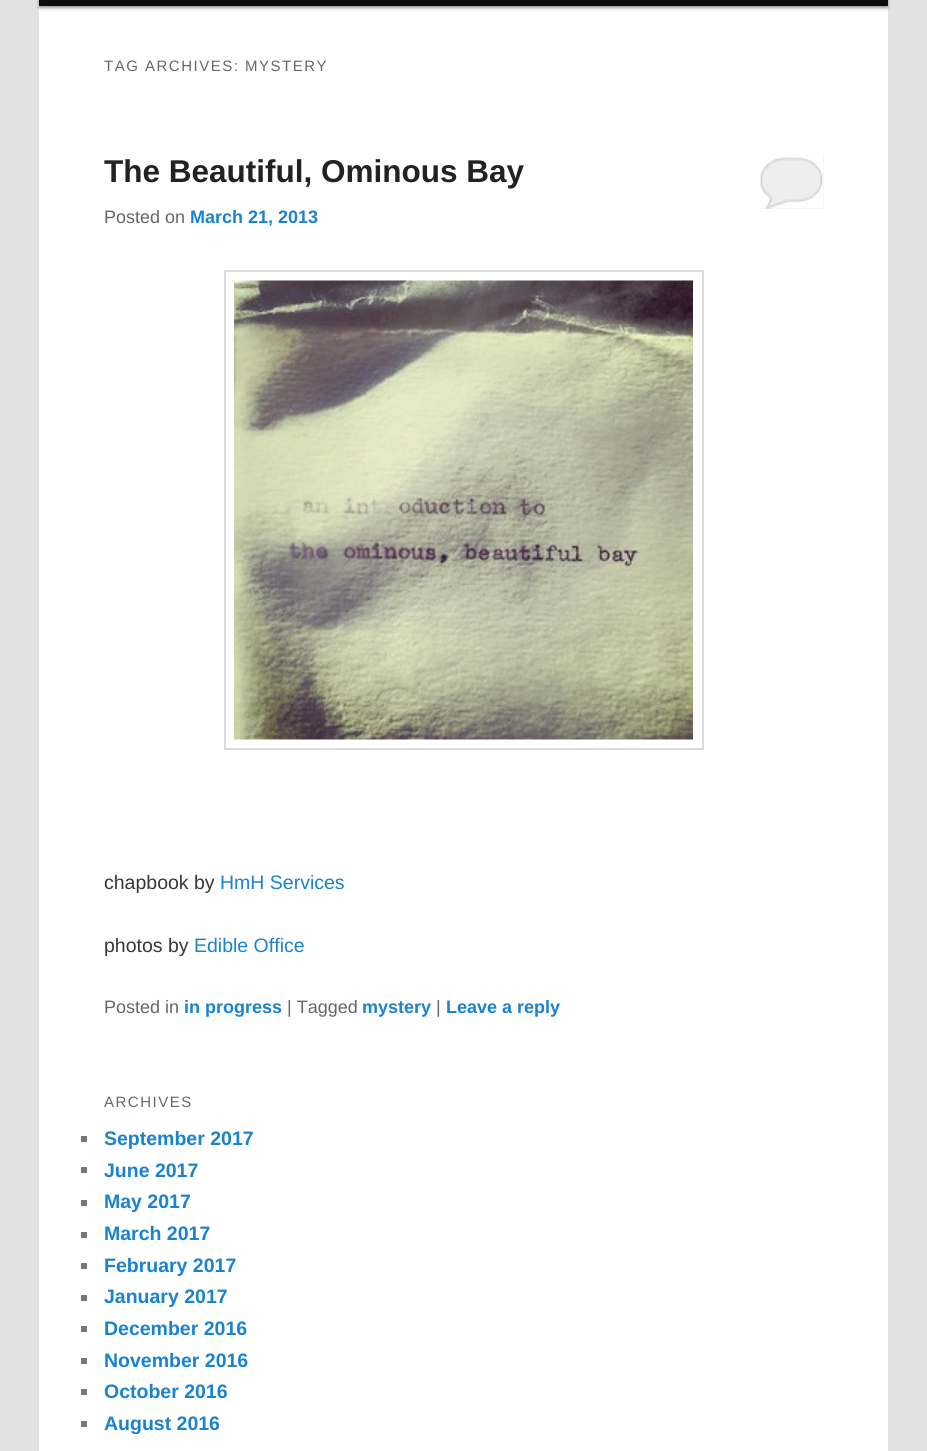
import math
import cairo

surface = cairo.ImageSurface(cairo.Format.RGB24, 927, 1451)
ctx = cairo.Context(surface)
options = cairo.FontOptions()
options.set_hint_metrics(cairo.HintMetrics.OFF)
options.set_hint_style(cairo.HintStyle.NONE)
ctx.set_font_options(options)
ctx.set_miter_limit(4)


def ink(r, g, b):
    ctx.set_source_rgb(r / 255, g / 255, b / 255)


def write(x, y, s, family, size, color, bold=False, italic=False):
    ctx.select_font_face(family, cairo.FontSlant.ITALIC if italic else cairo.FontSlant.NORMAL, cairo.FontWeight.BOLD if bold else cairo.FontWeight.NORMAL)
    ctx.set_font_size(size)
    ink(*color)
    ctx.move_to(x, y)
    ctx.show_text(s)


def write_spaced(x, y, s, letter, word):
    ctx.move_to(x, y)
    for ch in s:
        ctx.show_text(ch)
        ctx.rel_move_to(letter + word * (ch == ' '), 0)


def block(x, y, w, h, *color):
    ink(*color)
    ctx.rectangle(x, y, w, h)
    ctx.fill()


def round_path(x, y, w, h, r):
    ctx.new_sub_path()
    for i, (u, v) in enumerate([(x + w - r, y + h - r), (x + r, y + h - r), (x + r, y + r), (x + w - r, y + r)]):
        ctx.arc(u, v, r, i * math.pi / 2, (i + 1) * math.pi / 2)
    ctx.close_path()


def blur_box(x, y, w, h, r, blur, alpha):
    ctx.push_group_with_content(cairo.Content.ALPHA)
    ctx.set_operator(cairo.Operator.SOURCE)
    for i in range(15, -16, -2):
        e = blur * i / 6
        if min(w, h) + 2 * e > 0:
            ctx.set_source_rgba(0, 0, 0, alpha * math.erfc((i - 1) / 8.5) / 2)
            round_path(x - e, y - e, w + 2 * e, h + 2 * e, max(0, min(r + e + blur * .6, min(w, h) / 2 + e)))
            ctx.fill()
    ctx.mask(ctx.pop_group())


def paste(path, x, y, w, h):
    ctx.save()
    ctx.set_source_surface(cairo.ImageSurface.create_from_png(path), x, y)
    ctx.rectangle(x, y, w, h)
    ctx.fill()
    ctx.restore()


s1 = dict(family="Liberation Sans", size=31.5, color=(34, 34, 34), bold=True)
s2 = dict(family="Liberation Sans", size=18, color=(102, 102, 102))
s3 = dict(family="Liberation Sans", size=18, color=(25, 130, 209), bold=True)
s4 = dict(family="Liberation Sans", size=19.5, color=(55, 55, 55))
s5 = dict(family="Liberation Sans", size=19.5, color=(25, 130, 209))
s6 = dict(family="Liberation Sans", size=19.5, color=(25, 130, 209), bold=True)

ink(226, 226, 226)
ctx.paint()
block(39, 6, 849, 1445, 255, 255, 255)
ink(0, 0, 0)
blur_box(39, -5, 849, 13, 0, 1.5, 0.4)
gradient = cairo.LinearGradient(464, -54, 464, 6)
gradient.add_color_stop_rgba(0, 0.145, 0.145, 0.145, 1)
gradient.add_color_stop_rgba(1, 0.039, 0.039, 0.039, 1)
ctx.set_source(gradient)
ctx.rectangle(39, 0, 849, 6)
ctx.fill()
ctx.select_font_face("Liberation Sans")
ctx.set_font_size(15)
ink(102, 102, 102)
write_spaced(104, 71, "TAG ARCHIVES: MYSTERY", 1.5, 0)
write(104, 182, "The Beautiful, Ominous Bay", **s1)
block(759, 155, 65, 54, 238, 238, 238)
paste("pic1.png", 759, 155, 65, 54)
write(104, 223, "Posted on", **s2)
write(190, 223, "March 21, 2013", **s3)
ctx.rectangle(225, 271, 478, 478)
ink(221, 221, 221)
ctx.stroke()
paste("pic2.png", 234, 280, 459, 460)
write(104, 889, "chapbook by", **s4)
write(220, 889, "HmH Services", **s5)
write(104, 952, "photos by", **s4)
write(194, 952, "Edible Office", **s5)
write(104, 1013, "Posted in", **s2)
write(184, 1013, "in progress", **s3)
write(287, 1013, "| Tagged", **s2)
write(362, 1013, "mystery", **s3)
write(436, 1013, "|", **s2)
write(446, 1013, "Leave a reply", **s3)
ctx.select_font_face("Liberation Sans")
ctx.set_font_size(15)
ink(102, 102, 102)
write_spaced(104, 1107, "ARCHIVES", 1.5, 0)
block(81, 1136, 6, 6, 119, 119, 119)
write(104, 1145, "September 2017", **s6)
block(81, 1167, 6, 6, 119, 119, 119)
write(104, 1177, "June 2017", **s6)
block(81, 1200, 6, 6, 119, 119, 119)
write(104, 1208, "May 2017", **s6)
block(81, 1232, 6, 6, 119, 119, 119)
write(104, 1240, "March 2017", **s6)
block(81, 1263, 6, 6, 119, 119, 119)
write(104, 1272, "February 2017", **s6)
block(81, 1295, 6, 6, 119, 119, 119)
write(104, 1303, "January 2017", **s6)
block(81, 1326, 6, 6, 119, 119, 119)
write(104, 1335, "December 2016", **s6)
block(81, 1358, 6, 6, 119, 119, 119)
write(104, 1367, "November 2016", **s6)
block(81, 1389, 6, 6, 119, 119, 119)
write(104, 1398, "October 2016", **s6)
block(81, 1421, 6, 6, 119, 119, 119)
write(104, 1430, "August 2016", **s6)
surface.write_to_png("screenshot.png")
